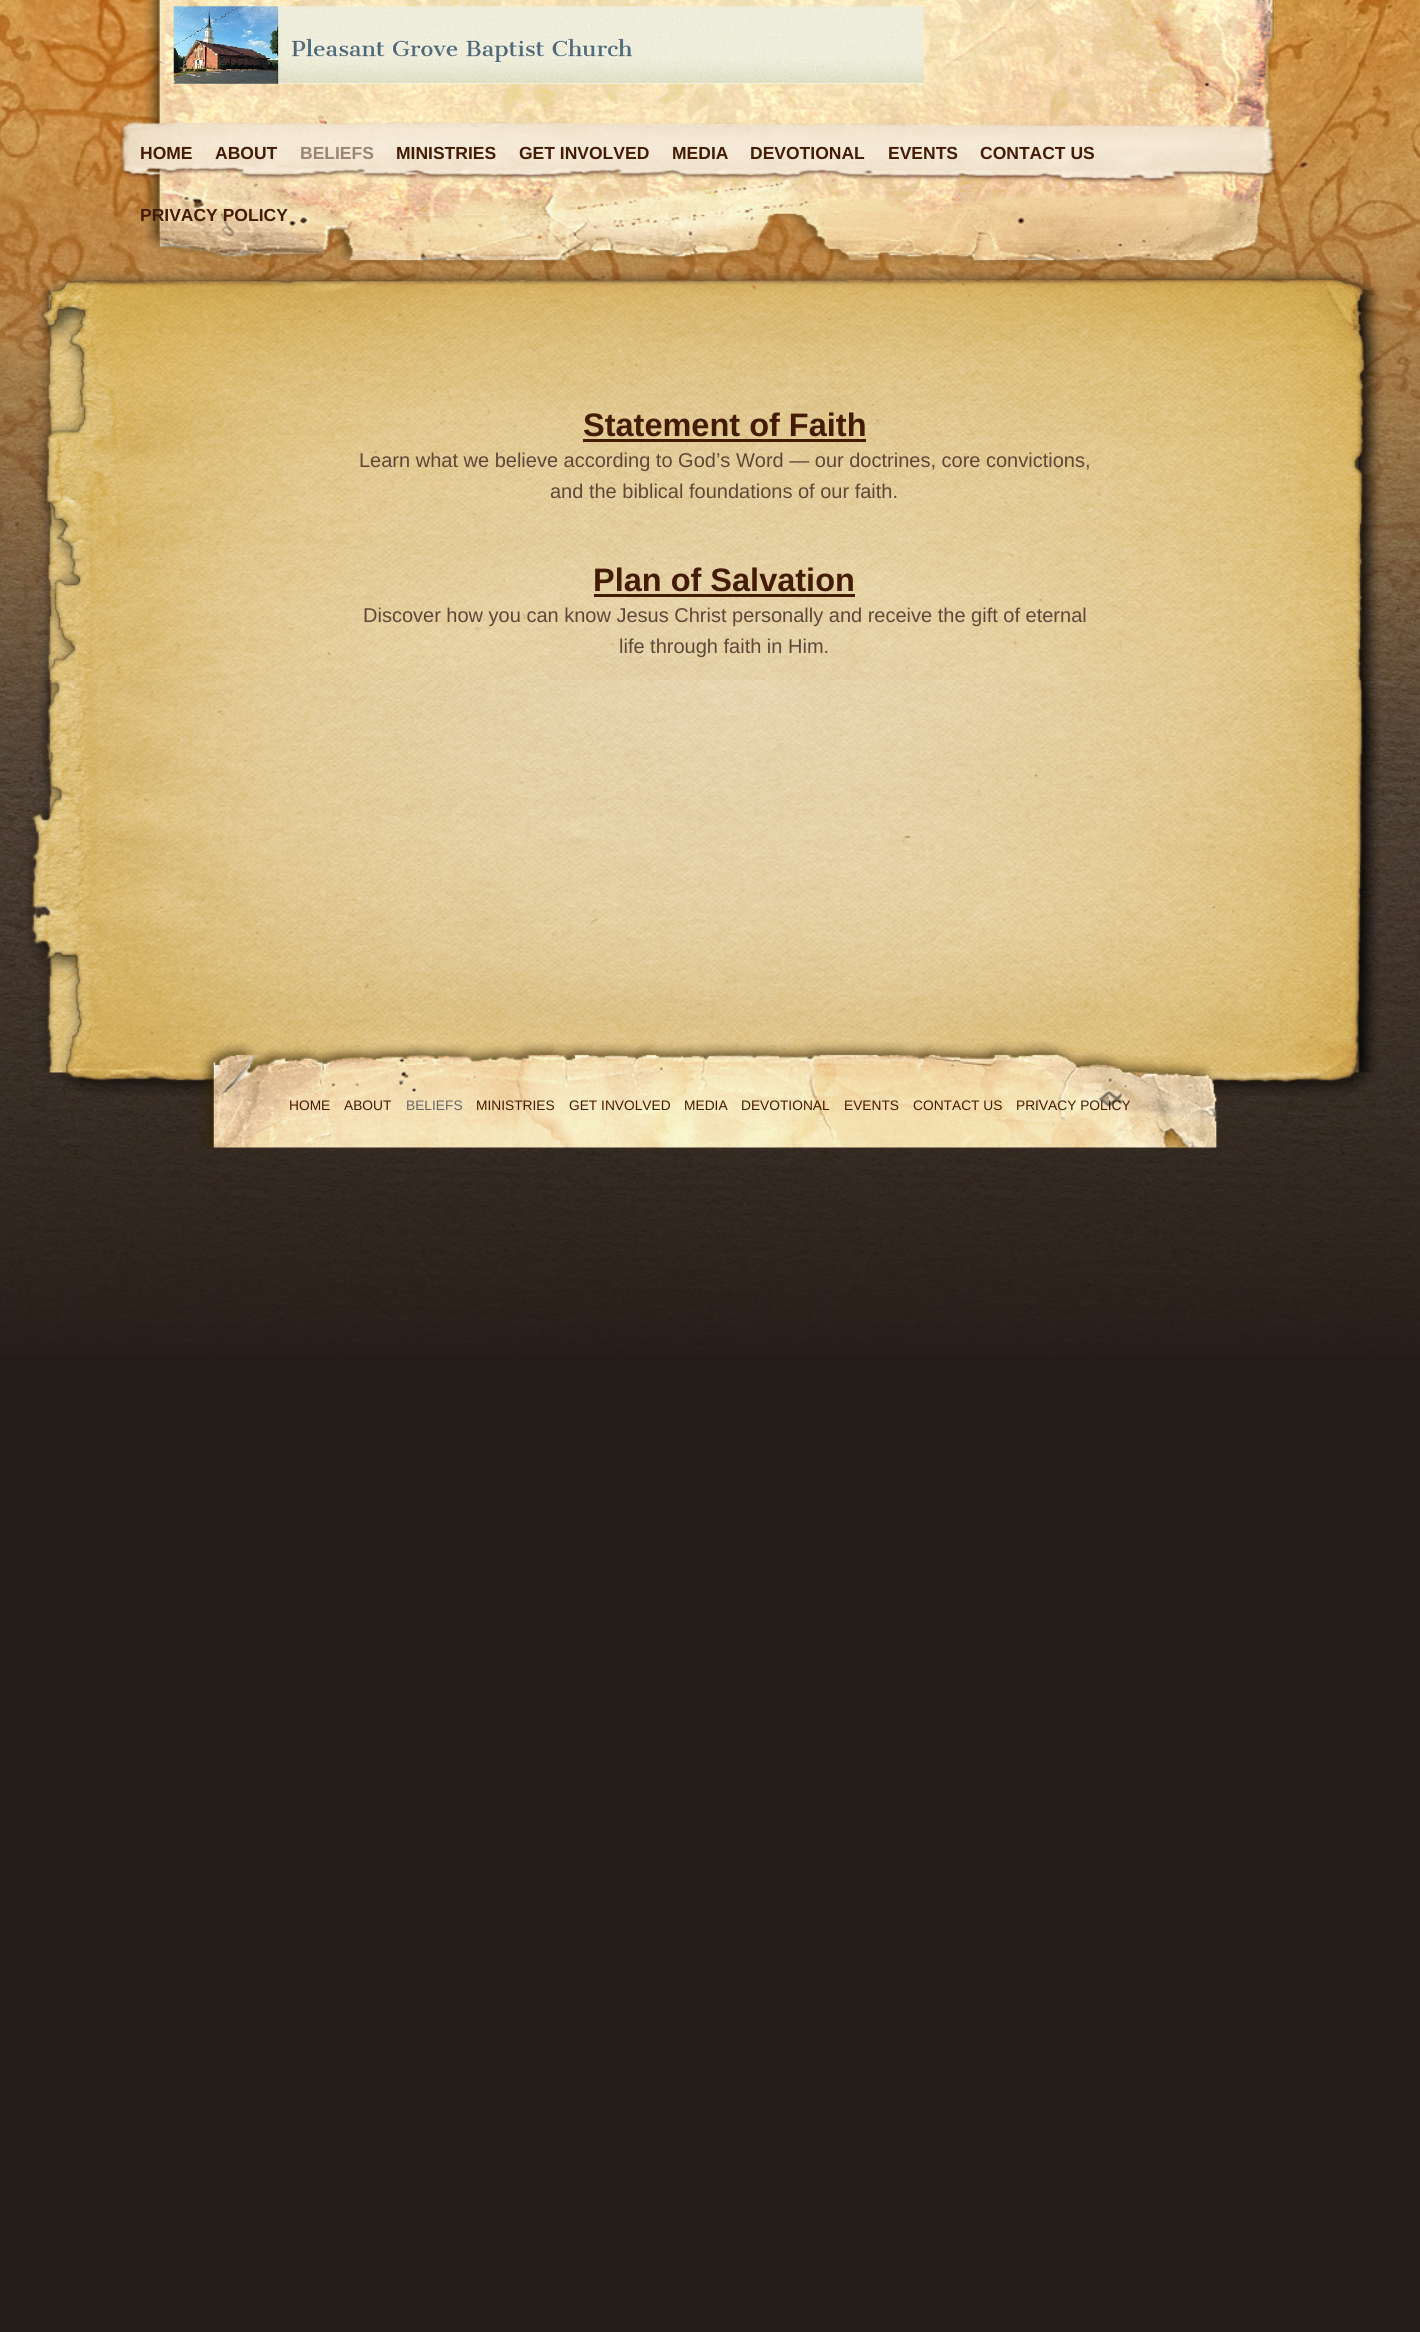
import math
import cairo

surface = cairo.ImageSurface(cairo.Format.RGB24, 1420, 2332)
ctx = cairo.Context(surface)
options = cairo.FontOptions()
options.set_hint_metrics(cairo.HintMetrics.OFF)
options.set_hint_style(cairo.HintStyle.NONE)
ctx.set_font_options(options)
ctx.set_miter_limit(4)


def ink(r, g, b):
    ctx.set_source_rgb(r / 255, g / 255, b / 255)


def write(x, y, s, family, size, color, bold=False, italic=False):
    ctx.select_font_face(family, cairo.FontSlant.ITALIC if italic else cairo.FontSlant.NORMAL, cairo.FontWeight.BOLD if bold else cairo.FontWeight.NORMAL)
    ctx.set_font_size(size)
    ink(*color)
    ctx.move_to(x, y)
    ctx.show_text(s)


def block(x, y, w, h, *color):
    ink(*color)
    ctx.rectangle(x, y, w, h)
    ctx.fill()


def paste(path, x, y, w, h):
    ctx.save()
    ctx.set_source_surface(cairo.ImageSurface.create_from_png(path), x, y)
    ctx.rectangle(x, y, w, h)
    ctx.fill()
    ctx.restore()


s1 = dict(family="Liberation Sans", size=17.5, color=(68, 27, 4), bold=True)
s2 = dict(family="Liberation Sans", size=17.5, color=(153, 133, 116), bold=True)
s3 = dict(family="Liberation Sans", size=32.5, color=(68, 27, 4), bold=True)
s4 = dict(family="Liberation Sans", size=20, color=(94, 70, 56))
s5 = dict(family="Liberation Sans", size=13.75, color=(68, 27, 4))
s6 = dict(family="Liberation Sans", size=13.75, color=(102, 102, 102))

ink(36, 28, 22)
ctx.paint()
paste("pic1.png", 0, 0, 1420, 1356)
paste("pic2.png", 144, 0, 1134, 265)
paste("pic3.png", 173, 6, 751, 78)
paste("pic4.png", 119, 122, 1158, 61)
write(140, 159, "HOME", **s1)
write(215, 159, "ABOUT", **s1)
write(300, 159, "BELIEFS", **s2)
write(396, 159, "MINISTRIES", **s1)
write(519, 159, "GET INVOLVED", **s1)
write(672, 159, "MEDIA", **s1)
write(750, 159, "DEVOTIONAL", **s1)
write(888, 159, "EVENTS", **s1)
write(980, 159, "CONTACT US", **s1)
write(140, 221, "PRIVACY POLICY", **s1)
paste("pic5.png", 38, 290, 1341, 783)
paste("pic6.png", 35, 268, 1348, 515)
write(583, 436, "Statement of Faith", **s3)
block(583, 439, 283, 3, 68, 27, 4)
write(359, 467, "Learn what we believe according to God’s Word — our doctrines, core convictions,", **s4)
write(550, 498, "and the biblical foundations of our faith.", **s4)
write(593, 591, "Plan of Salvation", **s3)
block(594, 594, 261, 3, 68, 27, 4)
write(363, 622, "Discover how you can know Jesus Christ personally and receive the gift of eternal", **s4)
write(619, 653, "life through faith in Him.", **s4)
paste("pic7.png", 27, 680, 1353, 416)
paste("pic8.png", 199, 1042, 1019, 106)
write(1016, 1110, "PRIVACY POLICY", **s5)
paste("pic9.png", 1098, 1091, 25, 16)
write(289, 1110, "HOME", **s5)
write(344, 1110, "ABOUT", **s5)
write(406, 1110, "BELIEFS", **s6)
write(476, 1110, "MINISTRIES", **s5)
write(569, 1110, "GET INVOLVED", **s5)
write(684, 1110, "MEDIA", **s5)
write(741, 1110, "DEVOTIONAL", **s5)
write(844, 1110, "EVENTS", **s5)
write(913, 1110, "CONTACT US", **s5)
surface.write_to_png("screenshot.png")
